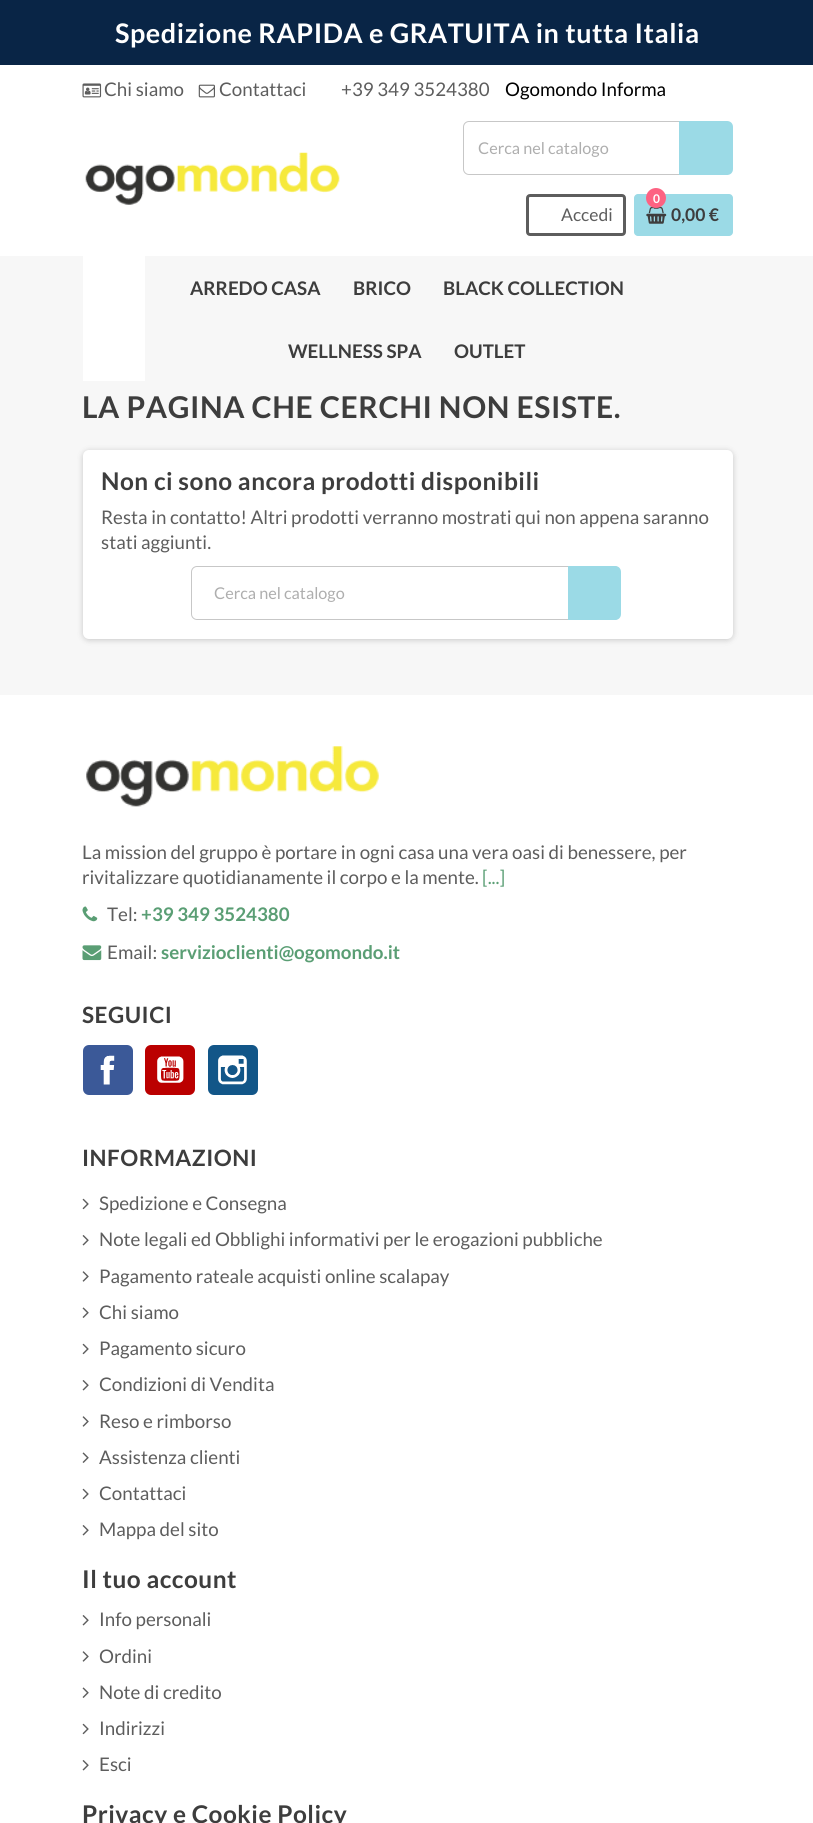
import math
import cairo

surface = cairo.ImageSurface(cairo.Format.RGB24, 813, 1823)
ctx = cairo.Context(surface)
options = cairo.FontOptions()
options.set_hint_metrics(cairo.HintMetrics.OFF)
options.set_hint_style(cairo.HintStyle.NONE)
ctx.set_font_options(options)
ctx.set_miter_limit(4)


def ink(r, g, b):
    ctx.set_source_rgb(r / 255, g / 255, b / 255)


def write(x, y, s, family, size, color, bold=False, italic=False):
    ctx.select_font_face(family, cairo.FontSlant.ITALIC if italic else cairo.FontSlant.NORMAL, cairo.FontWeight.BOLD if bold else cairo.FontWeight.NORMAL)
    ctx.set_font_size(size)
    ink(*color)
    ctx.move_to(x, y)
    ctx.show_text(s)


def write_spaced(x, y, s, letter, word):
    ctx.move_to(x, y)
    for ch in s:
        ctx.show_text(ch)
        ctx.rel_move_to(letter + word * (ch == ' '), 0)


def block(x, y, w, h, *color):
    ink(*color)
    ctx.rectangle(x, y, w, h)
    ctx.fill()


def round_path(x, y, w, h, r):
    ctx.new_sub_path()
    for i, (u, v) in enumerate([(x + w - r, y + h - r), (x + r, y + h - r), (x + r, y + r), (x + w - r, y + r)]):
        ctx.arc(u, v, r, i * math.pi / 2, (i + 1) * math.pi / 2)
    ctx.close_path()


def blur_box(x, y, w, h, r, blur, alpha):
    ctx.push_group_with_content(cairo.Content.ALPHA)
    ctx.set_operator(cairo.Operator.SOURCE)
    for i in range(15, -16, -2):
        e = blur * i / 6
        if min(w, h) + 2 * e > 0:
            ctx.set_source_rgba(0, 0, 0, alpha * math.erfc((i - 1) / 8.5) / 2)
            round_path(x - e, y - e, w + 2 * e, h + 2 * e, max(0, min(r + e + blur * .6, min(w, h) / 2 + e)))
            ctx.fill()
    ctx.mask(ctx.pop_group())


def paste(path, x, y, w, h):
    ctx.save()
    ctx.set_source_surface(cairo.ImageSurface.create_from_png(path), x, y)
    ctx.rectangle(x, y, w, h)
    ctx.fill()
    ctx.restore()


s1 = dict(family="Lato", size=18.75, color=(93, 93, 93))
s2 = dict(family="Lato", size=18.75, color=(0, 0, 0))
s3 = dict(family="Lato", size=16.25, color=(174, 174, 174))
s4 = dict(family="Lato", size=17.5, color=(93, 93, 93))
s5 = dict(family="Lato", size=12, color=(255, 255, 255), bold=True)
s6 = dict(family="Lato", size=17.5, color=(61, 61, 61), bold=True)
s7 = dict(family="Lato", size=18.75, color=(61, 61, 61), bold=True)
s8 = dict(family="Lato", size=18.75, color=(90, 158, 116))
s9 = dict(family="Lato", size=18.75, color=(90, 158, 116), bold=True)

ink(255, 255, 255)
ctx.paint()
block(0, 0, 813, 65, 9, 37, 70)
ctx.select_font_face("Lato", cairo.FontSlant.NORMAL, cairo.FontWeight.BOLD)
ctx.set_font_size(27)
ink(255, 255, 255)
write_spaced(115, 43, "Spedizione RAPIDA e GRATUITA in tutta Italia", 0.55, 0)
paste("pic1.png", 82, 83, 20, 15)
write(104, 96, "Chi siamo", **s1)
paste("pic2.png", 198, 84, 17, 14)
write(219, 96, "Contattaci", **s1)
write(341, 96, "+39 349 3524380", **s1)
write(505, 96, "Ogomondo Informa", **s2)
paste("pic3.png", 85, 152, 255, 53)
round_path(463.5, 121.5, 267, 53, 5.5)
ink(199, 199, 199)
ctx.set_line_width(1)
ctx.stroke()
write(478, 154, "Cerca nel catalogo", **s3)
ink(155, 218, 230)
ctx.new_path()
ctx.move_to(679, 121)
ctx.line_to(727, 121)
ctx.curve_to(730.5, 121, 733, 123.5, 733, 127)
ctx.line_to(733, 169)
ctx.curve_to(733, 172.5, 730.5, 175, 727, 175)
ctx.line_to(679, 175)
ctx.close_path()
ctx.fill()
round_path(527.5, 195.5, 97, 39, 2.5)
ink(93, 93, 93)
ctx.set_line_width(3)
ctx.stroke()
write(561, 221, "Accedi", **s4)
ink(155, 218, 230)
round_path(634, 194, 99, 42, 4)
ctx.fill()
paste("pic4.png", 646, 206, 21, 18)
ink(253, 98, 130)
ctx.arc(656, 198, 10, 0, 2 * math.pi)
ctx.fill()
write(653, 203, "0", **s5)
write(671, 221, "0,00 €", **s6)
block(0, 256, 813, 439, 247, 247, 247)
block(83, 256, 62, 125, 255, 255, 255)
write(190, 295, "ARREDO CASA", **s7)
write(353, 295, "BRICO", **s7)
write(443, 295, "BLACK COLLECTION", **s7)
write(288, 358, "WELLNESS SPA", **s7)
write(454, 358, "OUTLET", **s7)
ctx.set_font_size(30)
write_spaced(82, 418, "LA PAGINA CHE CERCHI NON ESISTE.", 0.6, 0)
ink(0, 0, 0)
blur_box(83, 451, 650, 189, 6, 3, 0.2)
ink(255, 255, 255)
round_path(83, 450, 650, 189, 6)
ctx.fill()
ctx.set_font_size(24.4)
ink(61, 61, 61)
write_spaced(101, 490, "Non ci sono ancora prodotti disponibili", 0.5, 0)
write(101, 524, "Resta in contatto! Altri prodotti verranno mostrati qui non appena saranno", **s1)
write(101, 549, "stati aggiunti.", **s1)
round_path(191.5, 566.5, 428, 53, 5.5)
ink(199, 199, 199)
ctx.set_line_width(1)
ctx.stroke()
write(214, 599, "Cerca nel catalogo", **s3)
ink(155, 218, 230)
ctx.new_path()
ctx.move_to(568, 566)
ctx.line_to(615, 566)
ctx.curve_to(618.5, 566, 621, 568.5, 621, 572)
ctx.line_to(621, 614)
ctx.curve_to(621, 617.5, 618.5, 620, 615, 620)
ctx.line_to(568, 620)
ctx.close_path()
ctx.fill()
paste("pic5.png", 86, 746, 293, 61)
write(82, 859, "La mission del gruppo è portare in ogni casa una vera oasi di benessere, per", **s1)
write(82, 884, "rivitalizzare quotidianamente il corpo e la mente.", **s1)
write(482, 884, "[...]", **s8)
paste("pic6.png", 82, 906, 16, 16)
write(107, 921, "Tel:", **s1)
write(141, 921, "+39 349 3524380", **s9)
paste("pic7.png", 82, 945, 20, 16)
write(107, 959, "Email:", **s1)
write(161, 959, "servizioclienti@ogomondo.it", **s9)
ctx.set_font_size(22.5)
ink(61, 61, 61)
write_spaced(82, 1023, "SEGUICI", 0.5, 0)
ink(59, 89, 152)
round_path(83, 1045, 50, 50, 6)
ctx.fill()
paste("pic8.png", 100, 1055, 15, 30)
ink(187, 0, 0)
round_path(145, 1045, 50, 50, 6)
ctx.fill()
paste("pic9.png", 157, 1056, 27, 27)
ink(18, 86, 136)
round_path(208, 1045, 50, 50, 6)
ctx.fill()
paste("pic10.png", 218, 1055, 29, 30)
ink(61, 61, 61)
write_spaced(82, 1166, "INFORMAZIONI", 0.5, 0)
paste("pic11.png", 82, 1198, 7, 12)
write(99, 1210, "Spedizione e Consegna", **s1)
paste("pic12.png", 82, 1235, 7, 11)
write(99, 1246, "Note legali ed Obblighi informativi per le erogazioni pubbliche", **s1)
paste("pic13.png", 82, 1271, 7, 11)
write(99, 1283, "Pagamento rateale acquisti online scalapay", **s1)
paste("pic14.png", 82, 1307, 7, 11)
write(99, 1319, "Chi siamo", **s1)
paste("pic11.png", 82, 1343, 7, 12)
write(99, 1355, "Pagamento sicuro", **s1)
paste("pic12.png", 82, 1380, 7, 11)
write(99, 1391, "Condizioni di Vendita", **s1)
paste("pic13.png", 82, 1416, 7, 11)
write(99, 1428, "Reso e rimborso", **s1)
paste("pic14.png", 82, 1452, 7, 11)
write(99, 1464, "Assistenza clienti", **s1)
paste("pic11.png", 82, 1488, 7, 12)
write(99, 1500, "Contattaci", **s1)
paste("pic12.png", 82, 1525, 7, 11)
write(99, 1536, "Mappa del sito", **s1)
ctx.select_font_face("Lato", cairo.FontSlant.NORMAL, cairo.FontWeight.BOLD)
ctx.set_font_size(24.4)
ink(61, 61, 61)
write_spaced(82, 1588, "Il tuo account", 0.5, 0)
paste("pic12.png", 82, 1615, 7, 11)
write(99, 1626, "Info personali", **s1)
paste("pic13.png", 82, 1651, 7, 11)
write(99, 1663, "Ordini", **s1)
paste("pic14.png", 82, 1687, 7, 11)
write(99, 1699, "Note di credito", **s1)
paste("pic11.png", 82, 1723, 7, 12)
write(99, 1735, "Indirizzi", **s1)
paste("pic12.png", 82, 1760, 7, 11)
write(99, 1771, "Esci", **s1)
ctx.select_font_face("Lato", cairo.FontSlant.NORMAL, cairo.FontWeight.BOLD)
ctx.set_font_size(24.4)
ink(61, 61, 61)
write_spaced(82, 1823, "Privacy e Cookie Policy", 0.5, 0)
surface.write_to_png("screenshot.png")
